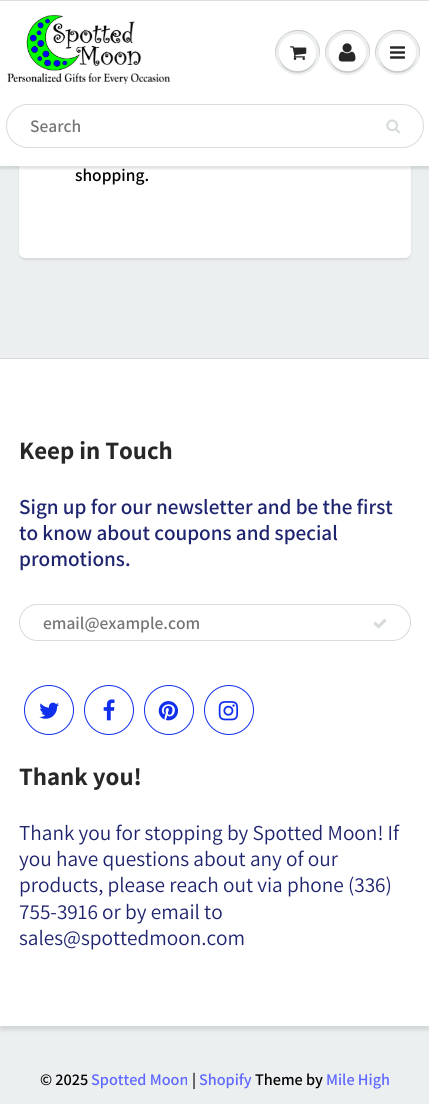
import math
import cairo

surface = cairo.ImageSurface(cairo.Format.RGB24, 429, 1104)
ctx = cairo.Context(surface)
options = cairo.FontOptions()
options.set_hint_metrics(cairo.HintMetrics.OFF)
options.set_hint_style(cairo.HintStyle.NONE)
ctx.set_font_options(options)
ctx.set_miter_limit(4)


def ink(r, g, b):
    ctx.set_source_rgb(r / 255, g / 255, b / 255)


def write(x, y, s, family, size, color, bold=False, italic=False):
    ctx.select_font_face(family, cairo.FontSlant.ITALIC if italic else cairo.FontSlant.NORMAL, cairo.FontWeight.BOLD if bold else cairo.FontWeight.NORMAL)
    ctx.set_font_size(size)
    ink(*color)
    ctx.move_to(x, y)
    ctx.show_text(s)


def block(x, y, w, h, *color):
    ink(*color)
    ctx.rectangle(x, y, w, h)
    ctx.fill()


def round_path(x, y, w, h, r):
    ctx.new_sub_path()
    for i, (u, v) in enumerate([(x + w - r, y + h - r), (x + r, y + h - r), (x + r, y + r), (x + w - r, y + r)]):
        ctx.arc(u, v, r, i * math.pi / 2, (i + 1) * math.pi / 2)
    ctx.close_path()


def blur_box(x, y, w, h, r, blur, alpha):
    ctx.push_group_with_content(cairo.Content.ALPHA)
    ctx.set_operator(cairo.Operator.SOURCE)
    for i in range(15, -16, -2):
        e = blur * i / 6
        if min(w, h) + 2 * e > 0:
            ctx.set_source_rgba(0, 0, 0, alpha * math.erfc((i - 1) / 8.5) / 2)
            round_path(x - e, y - e, w + 2 * e, h + 2 * e, max(0, min(r + e + blur * .6, min(w, h) / 2 + e)))
            ctx.fill()
    ctx.mask(ctx.pop_group())


def paste(path, x, y, w, h):
    ctx.save()
    ctx.set_source_surface(cairo.ImageSurface.create_from_png(path), x, y)
    ctx.rectangle(x, y, w, h)
    ctx.fill()
    ctx.restore()


s1 = dict(family="Assistant SemiBold", size=17.5, color=(117, 117, 117))
s2 = dict(family="Assistant SemiBold", size=17.5, color=(0, 0, 0))
s3 = dict(family="Assistant", size=25, color=(40, 39, 39), bold=True)
s4 = dict(family="Assistant SemiBold", size=21.25, color=(31, 36, 111))
s5 = dict(family="Assistant", size=21.25, color=(31, 36, 111))
s6 = dict(family="Assistant SemiBold", size=16.25, color=(0, 0, 0))
s7 = dict(family="Assistant SemiBold", size=16.25, color=(94, 104, 255))

ink(255, 255, 255)
ctx.paint()
block(0, 166, 429, 192, 236, 239, 239)
ink(11, 25, 28)
blur_box(19, -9, 392, 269, 6, 1, 0.1)
ink(255, 255, 255)
round_path(19, -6, 392, 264, 6)
ctx.fill()
ink(11, 25, 28)
blur_box(0, 3, 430, 166, 0, 1, 0.12)
block(0, 1, 429, 165, 255, 255, 255)
block(0, 0, 429, 1, 222, 222, 222)
paste("pic1.png", 7, 15, 163, 69)
ink(237, 239, 239)
ctx.arc(297.5, 52.5, 22.5, 0, 2 * math.pi)
ctx.fill()
ink(201, 203, 203)
ctx.new_path()
ctx.move_to(298, 31)
ctx.curve_to(314, 31, 321, 45, 319, 58)
ctx.curve_to(321, 52, 320, 45, 316, 40)
ctx.curve_to(301, 17, 267, 37, 277, 61)
ctx.curve_to(273, 48, 280, 31, 298, 31)
ctx.close_path()
ctx.fill()
ctx.new_path()
ctx.move_to(316, 56)
ctx.curve_to(312.5, 76, 282.5, 76, 279, 56)
ctx.curve_to(280.5, 78.5, 314.5, 78.5, 316, 56)
ctx.close_path()
ctx.fill()
ink(255, 255, 255)
ctx.arc(297.5, 52.5, 18.5, 0, 2 * math.pi)
ctx.fill()
ctx.new_path()
ctx.move_to(298, 35)
ctx.curve_to(310, 35, 316, 44, 316, 53)
ctx.curve_to(316, 49, 315, 45.5, 313, 42)
ctx.curve_to(301, 25, 274.5, 37.5, 279.5, 57)
ctx.curve_to(278, 46.5, 284, 35, 298, 35)
ctx.close_path()
ctx.fill()
paste("pic2.png", 290, 46, 17, 14)
ink(237, 239, 239)
ctx.arc(347.5, 52.5, 22.5, 0, 2 * math.pi)
ctx.fill()
ink(201, 203, 203)
ctx.new_path()
ctx.move_to(348, 31)
ctx.curve_to(364, 31, 371, 45, 369, 58)
ctx.curve_to(371, 52, 370, 45, 366, 40)
ctx.curve_to(351, 17, 317, 37, 327, 61)
ctx.curve_to(323, 48, 330, 31, 348, 31)
ctx.close_path()
ctx.fill()
ctx.new_path()
ctx.move_to(366, 56)
ctx.curve_to(362.5, 76, 332.5, 76, 329, 56)
ctx.curve_to(330.5, 78.5, 364.5, 78.5, 366, 56)
ctx.close_path()
ctx.fill()
ink(255, 255, 255)
ctx.arc(347.5, 52.5, 18.5, 0, 2 * math.pi)
ctx.fill()
ctx.new_path()
ctx.move_to(348, 35)
ctx.curve_to(360, 35, 366, 44, 366, 53)
ctx.curve_to(366, 49, 365, 45.5, 363, 42)
ctx.curve_to(351, 25, 324.5, 37.5, 329.5, 57)
ctx.curve_to(328, 46.5, 334, 35, 348, 35)
ctx.close_path()
ctx.fill()
paste("pic3.png", 338, 43, 18, 19)
ink(237, 239, 239)
ctx.arc(397.5, 52.5, 22.5, 0, 2 * math.pi)
ctx.fill()
ink(201, 203, 203)
ctx.new_path()
ctx.move_to(398, 31)
ctx.curve_to(414, 31, 421, 45, 419, 58)
ctx.curve_to(421, 52, 420, 45, 416, 40)
ctx.curve_to(401, 17, 367, 37, 377, 61)
ctx.curve_to(373, 48, 380, 31, 398, 31)
ctx.close_path()
ctx.fill()
ctx.new_path()
ctx.move_to(416, 56)
ctx.curve_to(412.5, 76, 382.5, 76, 379, 56)
ctx.curve_to(380.5, 78.5, 414.5, 78.5, 416, 56)
ctx.close_path()
ctx.fill()
ink(255, 255, 255)
ctx.arc(397.5, 52.5, 18.5, 0, 2 * math.pi)
ctx.fill()
ctx.new_path()
ctx.move_to(398, 35)
ctx.curve_to(410, 35, 416, 44, 416, 53)
ctx.curve_to(416, 49, 415, 45.5, 413, 42)
ctx.curve_to(401, 25, 374.5, 37.5, 379.5, 57)
ctx.curve_to(378, 46.5, 384, 35, 398, 35)
ctx.close_path()
ctx.fill()
paste("pic4.png", 390, 46, 15, 13)
round_path(6.5, 104.5, 417, 43, 21.5)
ink(215, 219, 219)
ctx.set_line_width(1)
ctx.stroke()
write(30, 132, "Search", **s1)
paste("pic5.png", 386, 119, 15, 15)
write(75, 181, "shopping.", **s2)
block(0, 1026, 429, 78, 236, 239, 239)
ctx.save()
ctx.rectangle(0, 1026, 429, 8)
ctx.clip()
ink(209, 215, 215)
blur_box(0, 361, 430, 669, 0, 2, 1)
ctx.restore()
block(0, 358, 429, 1, 215, 216, 219)
write(19, 459, "Keep in Touch", **s3)
write(19, 514, "Sign up for our newsletter and be the first", **s4)
write(19, 540, "to know about coupons and special", **s4)
write(19, 566, "promotions.", **s4)
round_path(19.5, 604.5, 391, 36, 18)
ink(215, 219, 219)
ctx.stroke()
write(43, 629, "email@example.com", **s1)
paste("pic6.png", 373, 618, 14, 11)
ctx.arc(49, 710, 24.5, 0, 2 * math.pi)
ink(16, 47, 237)
ctx.stroke()
paste("pic7.png", 39, 702, 20, 17)
ctx.arc(109, 710, 24.5, 0, 2 * math.pi)
ctx.stroke()
paste("pic8.png", 103, 699, 12, 22)
ctx.arc(169, 710, 24.5, 0, 2 * math.pi)
ctx.stroke()
paste("pic9.png", 158, 701, 20, 20)
ctx.arc(229, 710, 24.5, 0, 2 * math.pi)
ctx.stroke()
paste("pic10.png", 218, 701, 21, 20)
write(19, 785, "Thank you!", **s3)
write(19, 840, "Thank you for stopping by Spotted Moon! If", **s5)
write(19, 866, "you have questions about any of our", **s5)
write(19, 892, "products, please reach out via phone (336)", **s5)
write(19, 919, "755-3916 or by email to", **s5)
write(19, 945, "sales@spottedmoon.com", **s5)
write(40, 1085, "© 2025", **s6)
write(91, 1085, "Spotted Moon", **s7)
write(192, 1085, "|", **s6)
write(199, 1085, "Shopify", **s7)
write(255, 1085, "Theme by", **s6)
write(326, 1085, "Mile High", **s7)
surface.write_to_png("screenshot.png")
